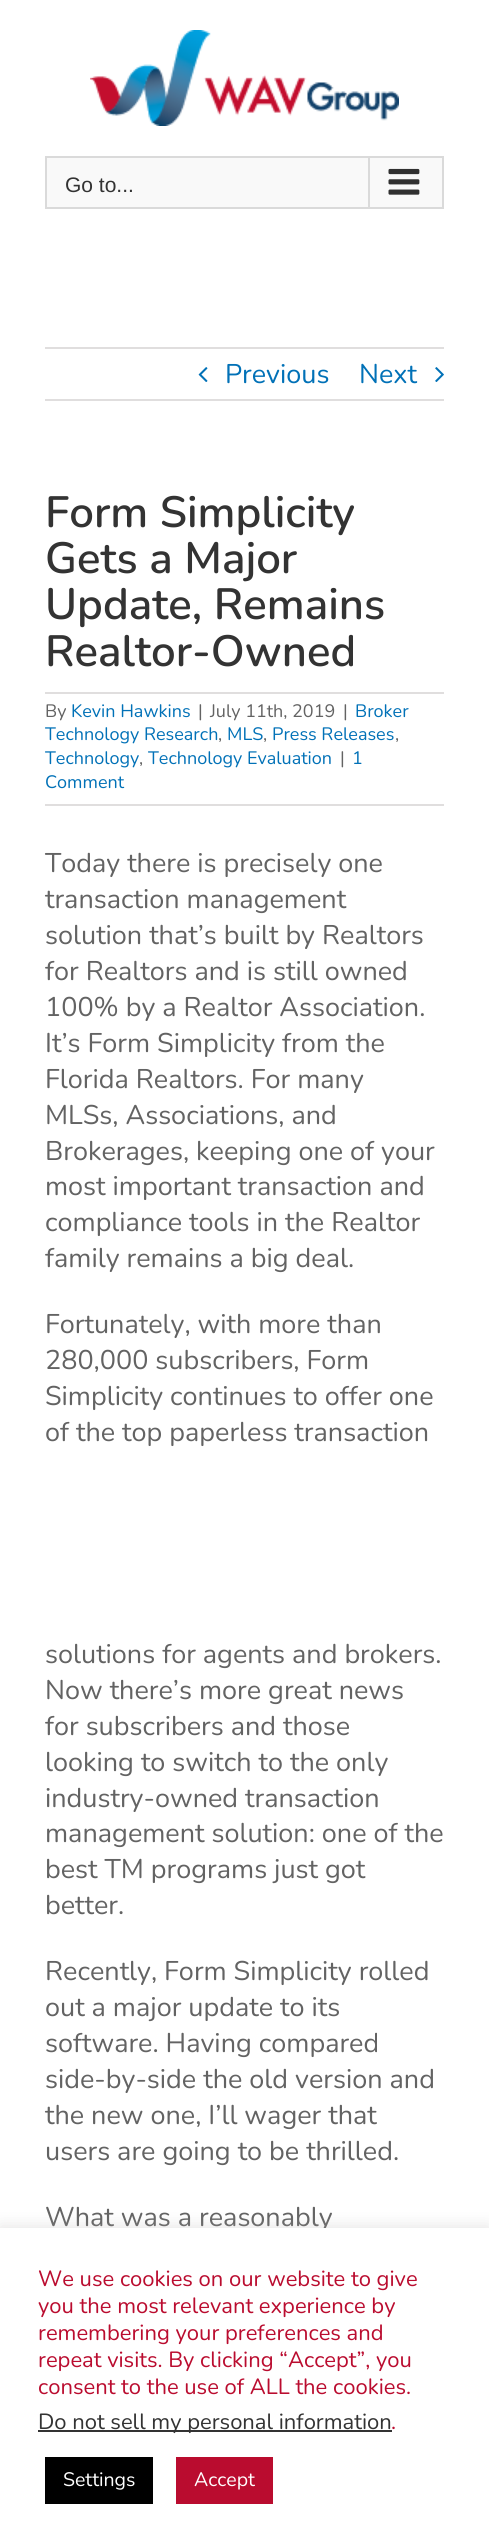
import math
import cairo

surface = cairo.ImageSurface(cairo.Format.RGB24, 489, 2548)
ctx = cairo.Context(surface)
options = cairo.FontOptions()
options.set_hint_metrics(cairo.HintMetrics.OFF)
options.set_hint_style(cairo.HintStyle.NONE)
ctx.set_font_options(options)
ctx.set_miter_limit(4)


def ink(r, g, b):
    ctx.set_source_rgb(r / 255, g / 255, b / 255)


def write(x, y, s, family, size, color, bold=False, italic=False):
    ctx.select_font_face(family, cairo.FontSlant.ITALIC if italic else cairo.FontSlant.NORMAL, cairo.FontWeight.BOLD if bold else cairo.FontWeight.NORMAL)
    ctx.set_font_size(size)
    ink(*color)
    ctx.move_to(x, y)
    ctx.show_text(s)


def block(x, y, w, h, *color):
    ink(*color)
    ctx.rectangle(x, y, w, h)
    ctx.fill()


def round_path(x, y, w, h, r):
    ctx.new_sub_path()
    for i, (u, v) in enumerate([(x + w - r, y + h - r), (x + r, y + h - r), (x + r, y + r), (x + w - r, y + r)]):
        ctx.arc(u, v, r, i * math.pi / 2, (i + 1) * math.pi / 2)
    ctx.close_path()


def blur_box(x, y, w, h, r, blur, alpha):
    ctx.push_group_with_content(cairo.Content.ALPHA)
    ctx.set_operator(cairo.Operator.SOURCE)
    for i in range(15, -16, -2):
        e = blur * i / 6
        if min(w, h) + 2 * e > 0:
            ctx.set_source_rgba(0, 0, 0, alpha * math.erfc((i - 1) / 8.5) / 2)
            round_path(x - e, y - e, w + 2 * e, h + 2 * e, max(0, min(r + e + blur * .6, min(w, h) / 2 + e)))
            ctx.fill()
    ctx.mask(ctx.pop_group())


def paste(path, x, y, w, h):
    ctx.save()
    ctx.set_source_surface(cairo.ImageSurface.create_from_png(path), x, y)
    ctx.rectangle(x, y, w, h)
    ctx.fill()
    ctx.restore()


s1 = dict(family="Liberation Sans", size=21, color=(51, 51, 51))
s2 = dict(family="Nunito", size=27, color=(1, 113, 183))
s3 = dict(family="Nunito SemiBold", size=43.75, color=(51, 51, 51))
s4 = dict(family="Nunito", size=18, color=(99, 99, 99))
s5 = dict(family="Nunito", size=18, color=(1, 113, 183))
s6 = dict(family="Nunito", size=27, color=(99, 99, 99))
s7 = dict(family="Nunito", size=22, color=(186, 12, 47))
s8 = dict(family="Nunito", size=22, color=(51, 51, 51))
s9 = dict(family="Nunito", size=19.5, color=(255, 255, 255))

ink(255, 255, 255)
ctx.paint()
paste("pic1.png", 90, 30, 309, 96)
ink(249, 249, 249)
ctx.rectangle(46, 157, 397, 51)
ctx.fill_preserve()
ink(218, 218, 218)
ctx.stroke()
write(65, 192, "Go to...", **s1)
block(368, 158, 2, 49, 218, 218, 218)
paste("pic2.png", 388, 168, 32, 27)
block(45, 347, 399, 2, 224, 222, 222)
block(45, 399, 399, 2, 224, 222, 222)
paste("pic3.png", 198, 367, 10, 15)
write(225, 383, "Previous", **s2)
write(359, 383, "Next", **s2)
paste("pic4.png", 435, 367, 9, 15)
write(45, 527, "Form Simplicity", **s3)
write(45, 573, "Gets a Major", **s3)
write(45, 619, "Update, Remains", **s3)
write(45, 666, "Realtor-Owned", **s3)
block(45, 692, 399, 2, 224, 222, 222)
block(45, 804, 399, 2, 224, 222, 222)
write(45, 717, "By", **s4)
write(71, 717, "Kevin Hawkins", **s5)
write(198, 717, "|", **s4)
write(210, 717, "July 11th, 2019", **s4)
write(343, 717, "|", **s4)
write(355, 717, "Broker", **s5)
write(45, 740, "Technology Research", **s5)
write(218, 740, ",", **s4)
write(227, 740, "MLS", **s5)
write(263, 740, ",", **s4)
write(272, 740, "Press Releases", **s5)
write(395, 740, ",", **s4)
write(45, 764, "Technology", **s5)
write(139, 764, ",", **s4)
write(148, 764, "Technology Evaluation", **s5)
write(340, 764, "|", **s4)
write(352, 764, "1", **s5)
write(45, 788, "Comment", **s5)
write(45, 872, "Today there is precisely one", **s6)
write(45, 908, "transaction management", **s6)
write(45, 944, "solution that’s built by Realtors", **s6)
write(45, 980, "for Realtors and is still owned", **s6)
write(45, 1016, "100% by a Realtor Association.", **s6)
write(45, 1052, "It’s Form Simplicity from the", **s6)
write(45, 1088, "Florida Realtors. For many", **s6)
write(45, 1124, "MLSs, Associations, and", **s6)
write(45, 1160, "Brokerages, keeping one of your", **s6)
write(45, 1195, "most important transaction and", **s6)
write(45, 1231, "compliance tools in the Realtor", **s6)
write(45, 1267, "family remains a big deal.", **s6)
write(45, 1333, "Fortunately, with more than", **s6)
write(45, 1369, "280,000 subscribers, Form", **s6)
write(45, 1405, "Simplicity continues to offer one", **s6)
write(45, 1441, "of the top paperless transaction", **s6)
write(45, 1663, "solutions for agents and brokers.", **s6)
write(45, 1699, "Now there’s more great news", **s6)
write(45, 1735, "for subscribers and those", **s6)
write(45, 1771, "looking to switch to the only", **s6)
write(45, 1807, "industry-owned transaction", **s6)
write(45, 1842, "management solution: one of the", **s6)
write(45, 1878, "best TM programs just got", **s6)
write(45, 1914, "better.", **s6)
write(45, 1980, "Recently, Form Simplicity rolled", **s6)
write(45, 2016, "out a major update to its", **s6)
write(45, 2052, "software. Having compared", **s6)
write(45, 2088, "side-by-side the old version and", **s6)
write(45, 2124, "the new one, I’ll wager that", **s6)
write(45, 2160, "users are going to be thrilled.", **s6)
write(45, 2226, "What was a reasonably", **s6)
ink(172, 171, 171)
blur_box(0, 2226, 489, 321, 0, 7.5, 0.3)
block(0, 2228, 489, 320, 255, 255, 255)
write(38, 2286, "We use cookies on our website to give", **s7)
write(38, 2313, "you the most relevant experience by", **s7)
write(38, 2340, "remembering your preferences and", **s7)
write(38, 2367, "repeat visits. By clicking “Accept”, you", **s7)
write(38, 2394, "consent to the use of ALL the cookies.", **s7)
block(38, 2430, 354, 2, 51, 51, 51)
write(38, 2429, "Do not sell my personal information", **s8)
write(391, 2429, ".", **s7)
block(45, 2457, 108, 47, 0, 0, 0)
write(63, 2486, "Settings", **s9)
block(176, 2457, 97, 47, 186, 12, 47)
write(194, 2486, "Accept", **s9)
surface.write_to_png("screenshot.png")
